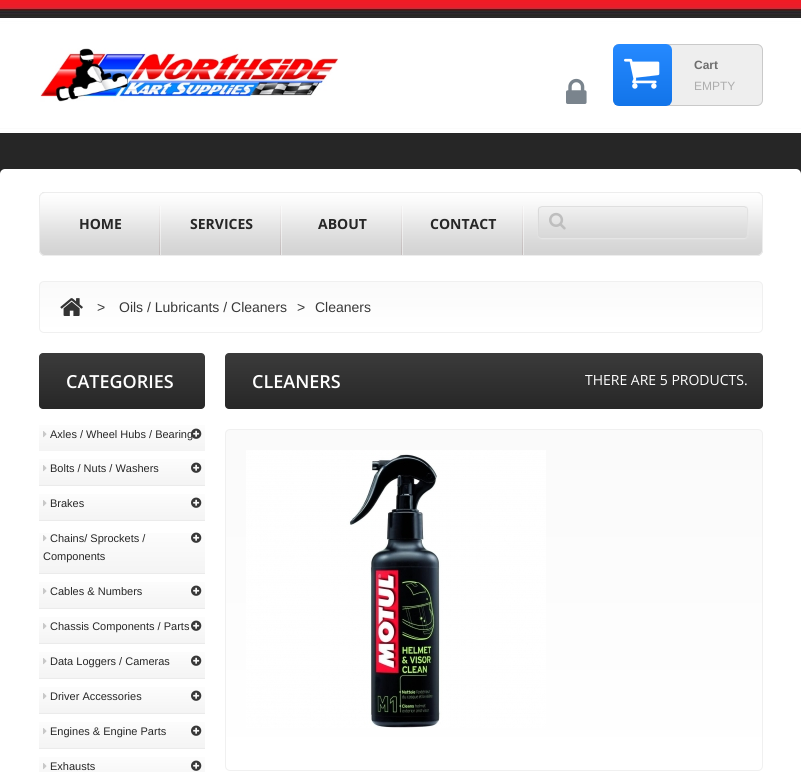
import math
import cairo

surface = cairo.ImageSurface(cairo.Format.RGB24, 801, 772)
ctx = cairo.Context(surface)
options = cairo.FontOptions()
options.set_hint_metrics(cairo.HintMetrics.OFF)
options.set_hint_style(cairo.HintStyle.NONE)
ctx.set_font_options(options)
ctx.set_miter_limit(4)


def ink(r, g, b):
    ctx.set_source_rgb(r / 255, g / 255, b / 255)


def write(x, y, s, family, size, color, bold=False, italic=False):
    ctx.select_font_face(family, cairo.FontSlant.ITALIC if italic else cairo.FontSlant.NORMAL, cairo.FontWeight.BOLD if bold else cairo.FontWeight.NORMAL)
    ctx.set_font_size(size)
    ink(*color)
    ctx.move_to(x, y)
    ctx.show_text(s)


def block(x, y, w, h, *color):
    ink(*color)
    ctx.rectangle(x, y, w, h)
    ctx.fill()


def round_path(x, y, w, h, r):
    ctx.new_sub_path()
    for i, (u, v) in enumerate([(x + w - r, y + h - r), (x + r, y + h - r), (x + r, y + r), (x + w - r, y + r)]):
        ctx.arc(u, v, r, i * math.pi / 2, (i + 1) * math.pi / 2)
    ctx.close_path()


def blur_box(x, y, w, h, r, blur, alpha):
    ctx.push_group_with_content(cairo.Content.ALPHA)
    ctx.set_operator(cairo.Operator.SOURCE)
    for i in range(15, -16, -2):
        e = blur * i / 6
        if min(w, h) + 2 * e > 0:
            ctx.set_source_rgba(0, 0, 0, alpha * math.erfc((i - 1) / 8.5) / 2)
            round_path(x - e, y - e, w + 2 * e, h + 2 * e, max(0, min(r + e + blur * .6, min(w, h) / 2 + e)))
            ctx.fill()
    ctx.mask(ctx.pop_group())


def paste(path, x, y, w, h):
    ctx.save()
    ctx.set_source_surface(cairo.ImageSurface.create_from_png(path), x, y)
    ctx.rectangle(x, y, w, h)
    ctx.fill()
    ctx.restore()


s1 = dict(family="Liberation Sans", size=12, color=(110, 110, 110), bold=True)
s2 = dict(family="Liberation Sans", size=12, color=(173, 173, 173))
s3 = dict(family="Open Sans", size=14, color=(39, 39, 39), bold=True)
s4 = dict(family="Liberation Sans", size=14, color=(56, 56, 56))
s5 = dict(family="Open Sans SemiBold", size=18, color=(255, 255, 255))
s6 = dict(family="Liberation Sans", size=11, color=(39, 39, 39))
s7 = dict(family="Open Sans", size=14, color=(255, 255, 255))

ink(255, 255, 255)
ctx.paint()
paste("pic1.png", 0, 0, 801, 174)
ink(255, 255, 255)
round_path(0, 169, 801, 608, 5)
ctx.fill()
paste("pic2.png", 40, 48, 299, 54)
paste("pic3.png", 566, 78, 21, 26)
ink(238, 238, 238)
round_path(613.5, 44.5, 149, 61, 5.5)
ctx.fill_preserve()
ink(201, 201, 201)
ctx.set_line_width(1)
ctx.stroke()
paste("pic4.png", 613, 44, 59, 62)
paste("pic5.png", 624, 58, 36, 31)
write(694, 69, "Cart", **s1)
write(694, 90, "EMPTY", **s2)
ink(212, 212, 212)
round_path(39, 192, 724, 64, 6)
ctx.fill()
paste("pic6.png", 39, 193, 724, 59)
round_path(39.5, 192.5, 723, 63, 5.5)
ink(237, 237, 237)
ctx.stroke()
paste("pic7.png", 159, 206, 2, 49)
write(79, 229, "HOME", **s3)
paste("pic7.png", 280, 206, 2, 49)
write(190, 229, "SERVICES", **s3)
paste("pic7.png", 401, 206, 2, 49)
write(318, 229, "ABOUT", **s3)
paste("pic7.png", 522, 206, 2, 49)
write(430, 229, "CONTACT", **s3)
ink(230, 230, 230)
blur_box(538, 207, 210, 32, 4, 0.5, 1)
paste("pic8.png", 538, 207, 210, 31)
ink(223, 223, 223)
ctx.new_path()
ctx.move_to(542, 206)
ctx.line_to(539, 207)
ctx.line_to(540, 208)
ctx.line_to(542, 207)
ctx.line_to(744, 207)
ctx.line_to(746, 208)
ctx.line_to(747, 207)
ctx.line_to(744, 206)
ctx.close_path()
ctx.fill()
ink(226, 226, 226)
ctx.new_path()
ctx.move_to(748, 234)
ctx.line_to(748, 210)
ctx.curve_to(748, 209, 747.5, 208, 747, 207)
ctx.line_to(746, 208)
ctx.curve_to(747, 208, 747, 209, 747, 210)
ctx.line_to(747, 234)
ctx.curve_to(747, 236, 746, 238, 744, 238)
ctx.curve_to(746, 238, 748, 236, 748, 234)
ctx.close_path()
ctx.fill()
ink(218, 218, 218)
ctx.new_path()
ctx.move_to(538, 210)
ctx.line_to(538, 234)
ctx.curve_to(538, 236, 540, 238, 542, 238)
ctx.curve_to(540, 238, 539, 236, 539, 234)
ctx.line_to(539, 210)
ctx.curve_to(539, 209, 539, 208, 540, 208)
ctx.line_to(539, 207)
ctx.curve_to(538.5, 208, 538, 209, 538, 210)
ctx.close_path()
ctx.fill()
paste("pic9.png", 549, 212, 17, 18)
ctx.save()
round_path(39, 281, 724, 52, 5)
ctx.clip()
gradient = cairo.LinearGradient(401, 282, 401, 332)
gradient.add_color_stop_rgba(0, 0.98, 0.98, 0.98, 1)
gradient.add_color_stop_rgba(1, 1, 1, 1, 1)
ctx.set_source(gradient)
ctx.rectangle(39, 282, 724, 50)
ctx.fill()
ctx.restore()
round_path(39.5, 281.5, 723, 51, 4.5)
ink(240, 240, 240)
ctx.stroke()
paste("pic10.png", 60, 298, 23, 18)
write(97, 312, ">", **s4)
write(119, 312, "Oils / Lubricants / Cleaners", **s4)
write(297, 312, ">", **s4)
write(315, 312, "Cleaners", **s4)
gradient = cairo.LinearGradient(122, 353, 122, 409)
gradient.add_color_stop_rgba(0, 0.231, 0.231, 0.231, 1)
gradient.add_color_stop_rgba(1, 0.153, 0.153, 0.153, 1)
ctx.set_source(gradient)
round_path(39, 353, 166, 56, 4)
ctx.fill()
write(66, 388, "CATEGORIES", **s5)
gradient = cairo.LinearGradient(122, 417, 122, 451)
gradient.add_color_stop_rgba(0, 1, 1, 1, 1)
gradient.add_color_stop_rgba(1, 0.957, 0.957, 0.957, 1)
ctx.set_source(gradient)
ctx.rectangle(39, 425, 166, 26)
ctx.fill()
paste("pic11.png", 43, 431, 4, 7)
write(50, 438, "Axles / Wheel Hubs / Bearing", **s6)
paste("pic12.png", 191, 428, 11, 11)
gradient = cairo.LinearGradient(122, 451, 122, 485)
gradient.add_color_stop_rgba(0, 1, 1, 1, 1)
gradient.add_color_stop_rgba(1, 0.957, 0.957, 0.957, 1)
ctx.set_source(gradient)
ctx.rectangle(39, 459, 166, 26)
ctx.fill()
block(39, 485, 166, 1, 235, 235, 235)
paste("pic11.png", 43, 465, 4, 7)
write(50, 472, "Bolts / Nuts / Washers", **s6)
paste("pic13.png", 191, 462, 11, 11)
gradient = cairo.LinearGradient(122, 486, 122, 520)
gradient.add_color_stop_rgba(0, 1, 1, 1, 1)
gradient.add_color_stop_rgba(1, 0.957, 0.957, 0.957, 1)
ctx.set_source(gradient)
ctx.rectangle(39, 494, 166, 26)
ctx.fill()
block(39, 520, 166, 1, 235, 235, 235)
paste("pic11.png", 43, 500, 4, 7)
write(50, 507, "Brakes", **s6)
paste("pic13.png", 191, 497, 11, 11)
gradient = cairo.LinearGradient(122, 521, 122, 573)
gradient.add_color_stop_rgba(0, 1, 1, 1, 1)
gradient.add_color_stop_rgba(1, 0.957, 0.957, 0.957, 1)
ctx.set_source(gradient)
ctx.rectangle(39, 533, 166, 40)
ctx.fill()
block(39, 573, 166, 1, 235, 235, 235)
paste("pic14.png", 43, 535, 4, 7)
write(50, 542, "Chains/ Sprockets /", **s6)
write(43, 560, "Components", **s6)
paste("pic15.png", 191, 532, 11, 11)
gradient = cairo.LinearGradient(122, 574, 122, 608)
gradient.add_color_stop_rgba(0, 1, 1, 1, 1)
gradient.add_color_stop_rgba(1, 0.957, 0.957, 0.957, 1)
ctx.set_source(gradient)
ctx.rectangle(39, 582, 166, 26)
ctx.fill()
block(39, 608, 166, 1, 235, 235, 235)
paste("pic11.png", 43, 588, 4, 7)
write(50, 595, "Cables & Numbers", **s6)
paste("pic13.png", 191, 585, 11, 11)
gradient = cairo.LinearGradient(122, 609, 122, 643)
gradient.add_color_stop_rgba(0, 1, 1, 1, 1)
gradient.add_color_stop_rgba(1, 0.957, 0.957, 0.957, 1)
ctx.set_source(gradient)
ctx.rectangle(39, 617, 166, 26)
ctx.fill()
block(39, 643, 166, 1, 235, 235, 235)
paste("pic11.png", 43, 623, 4, 7)
write(50, 630, "Chassis Components / Parts", **s6)
paste("pic13.png", 191, 620, 11, 11)
gradient = cairo.LinearGradient(122, 644, 122, 678)
gradient.add_color_stop_rgba(0, 1, 1, 1, 1)
gradient.add_color_stop_rgba(1, 0.957, 0.957, 0.957, 1)
ctx.set_source(gradient)
ctx.rectangle(39, 652, 166, 26)
ctx.fill()
block(39, 678, 166, 1, 235, 235, 235)
paste("pic11.png", 43, 658, 4, 7)
write(50, 665, "Data Loggers / Cameras", **s6)
paste("pic13.png", 191, 655, 11, 11)
gradient = cairo.LinearGradient(122, 679, 122, 713)
gradient.add_color_stop_rgba(0, 1, 1, 1, 1)
gradient.add_color_stop_rgba(1, 0.957, 0.957, 0.957, 1)
ctx.set_source(gradient)
ctx.rectangle(39, 687, 166, 26)
ctx.fill()
block(39, 713, 166, 1, 235, 235, 235)
paste("pic11.png", 43, 693, 4, 7)
write(50, 700, "Driver Accessories", **s6)
paste("pic13.png", 191, 690, 11, 11)
gradient = cairo.LinearGradient(122, 714, 122, 748)
gradient.add_color_stop_rgba(0, 1, 1, 1, 1)
gradient.add_color_stop_rgba(1, 0.957, 0.957, 0.957, 1)
ctx.set_source(gradient)
ctx.rectangle(39, 722, 166, 26)
ctx.fill()
block(39, 748, 166, 1, 235, 235, 235)
paste("pic11.png", 43, 728, 4, 7)
write(50, 735, "Engines & Engine Parts", **s6)
paste("pic13.png", 191, 725, 11, 11)
gradient = cairo.LinearGradient(122, 749, 122, 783)
gradient.add_color_stop_rgba(0, 1, 1, 1, 1)
gradient.add_color_stop_rgba(1, 0.957, 0.957, 0.957, 1)
ctx.set_source(gradient)
ctx.rectangle(39, 757, 166, 15)
ctx.fill()
paste("pic11.png", 43, 763, 4, 7)
write(50, 770, "Exhausts", **s6)
paste("pic13.png", 191, 760, 11, 11)
gradient = cairo.LinearGradient(494, 353, 494, 409)
gradient.add_color_stop_rgba(0, 0.231, 0.231, 0.231, 1)
gradient.add_color_stop_rgba(1, 0.153, 0.153, 0.153, 1)
ctx.set_source(gradient)
round_path(225, 353, 538, 56, 4)
ctx.fill()
write(252, 388, "CLEANERS", **s5)
write(585, 385, "THERE ARE 5 PRODUCTS.", **s7)
ctx.save()
round_path(225, 429, 538, 342, 5)
ctx.clip()
gradient = cairo.LinearGradient(494, 430, 494, 770)
gradient.add_color_stop_rgba(0, 0.98, 0.98, 0.98, 1)
gradient.add_color_stop_rgba(1, 1, 1, 1, 1)
ctx.set_source(gradient)
ctx.rectangle(225, 430, 538, 340)
ctx.fill()
ctx.restore()
round_path(225.5, 429.5, 537, 341, 4.5)
ink(240, 240, 240)
ctx.stroke()
paste("pic16.png", 246, 450, 300, 278)
surface.write_to_png("screenshot.png")
